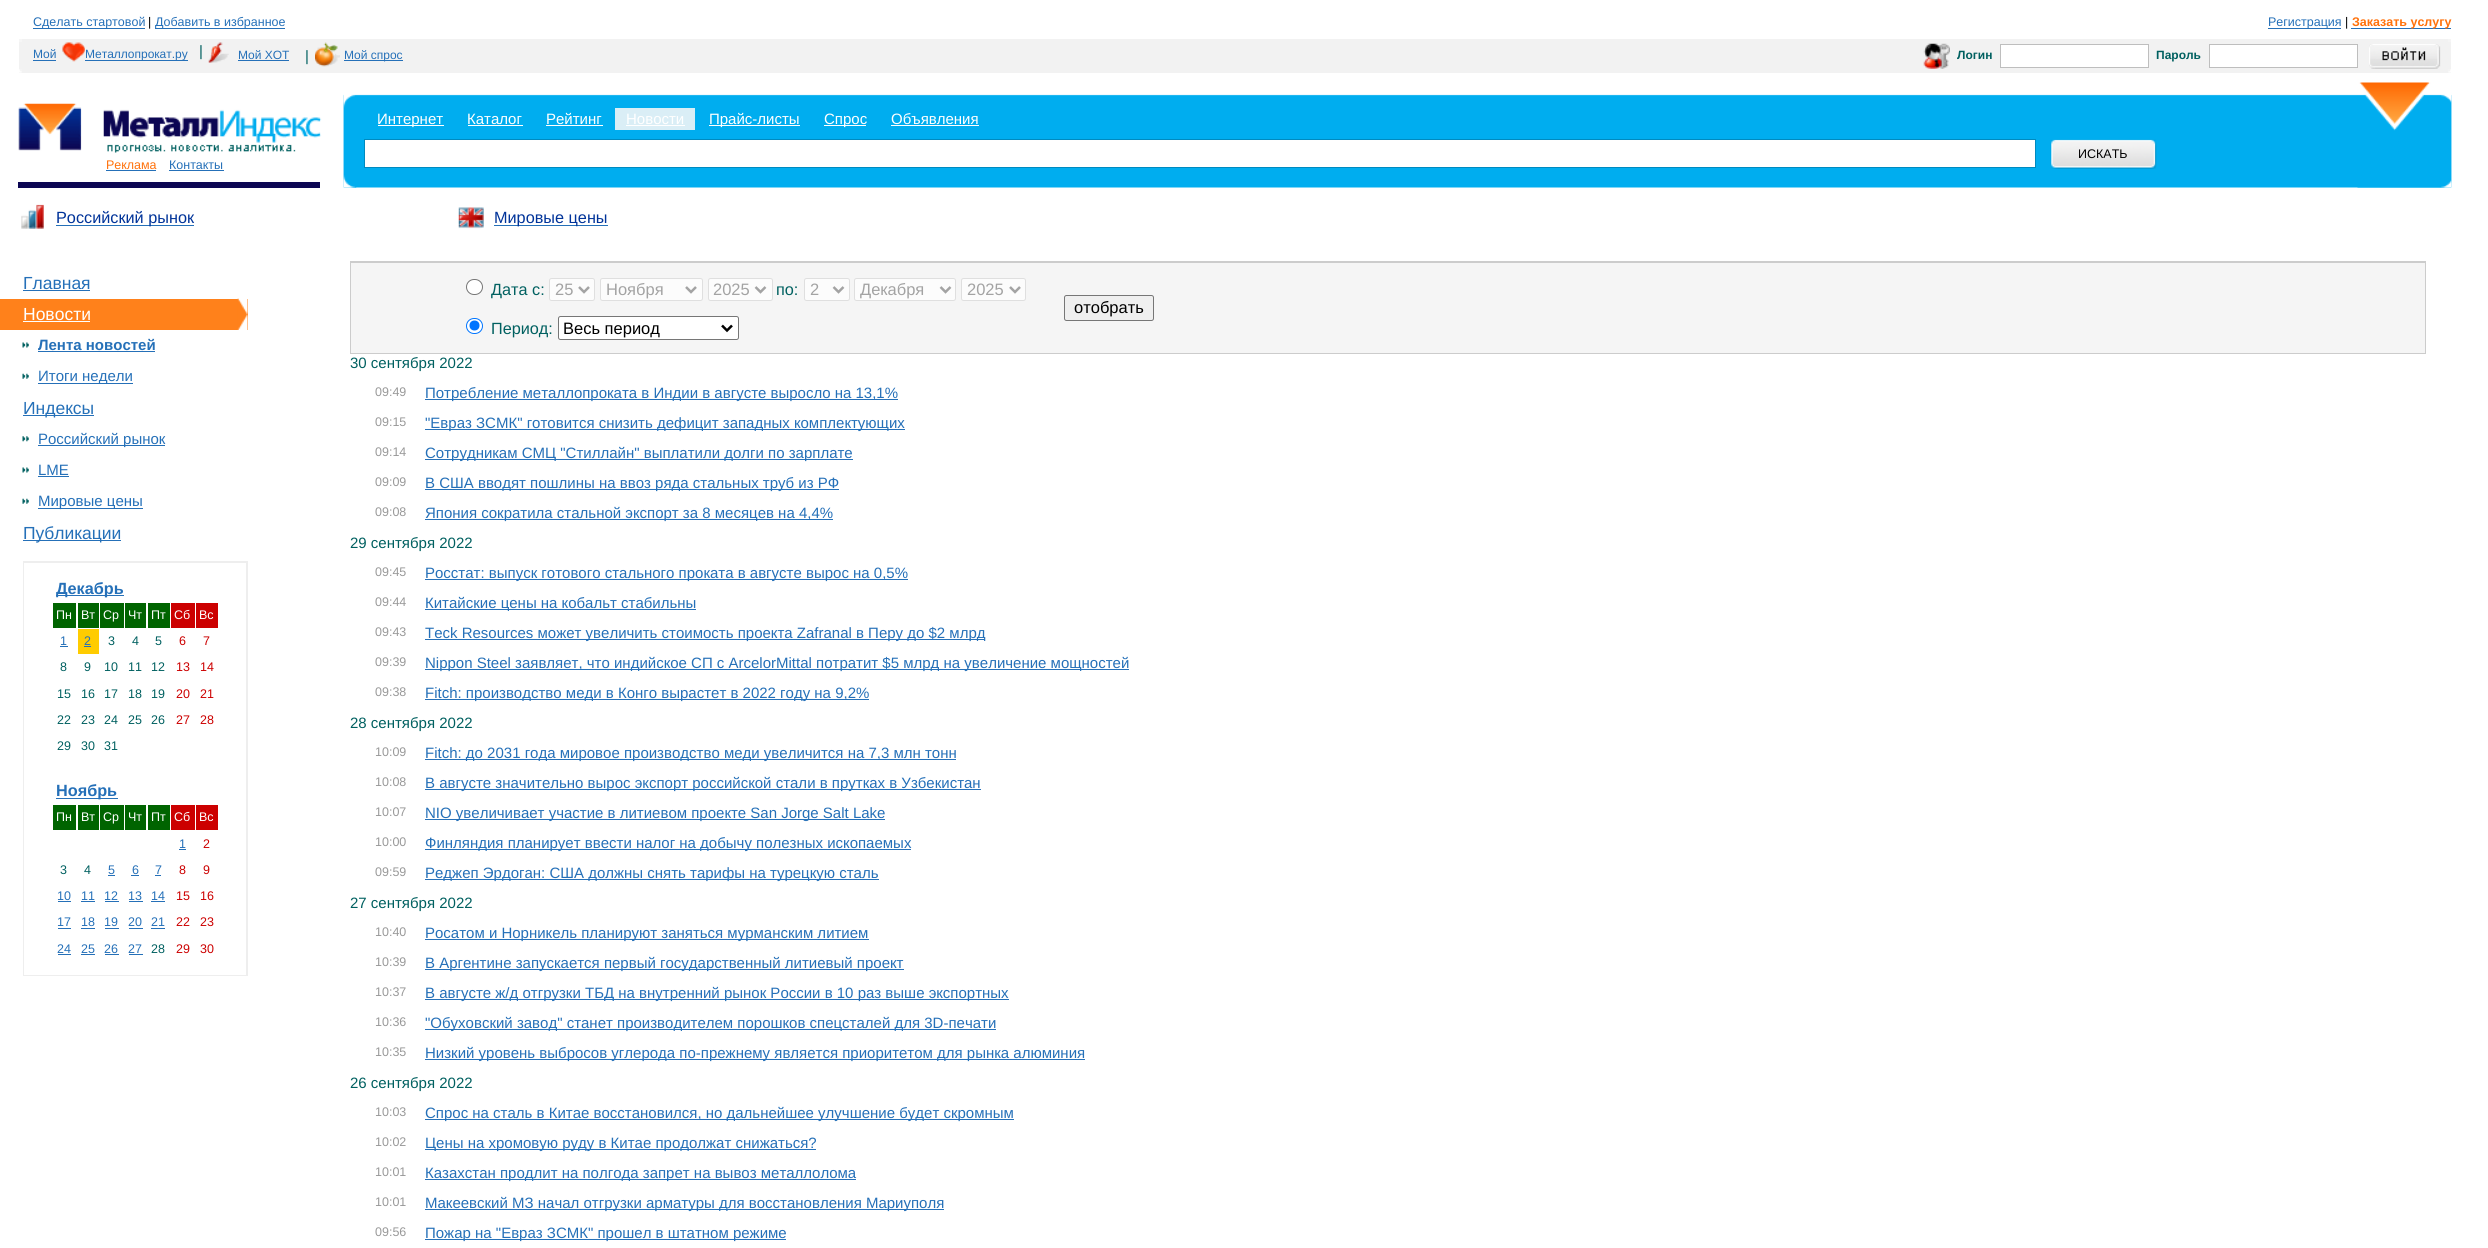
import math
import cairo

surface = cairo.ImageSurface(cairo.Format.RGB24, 2488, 1248)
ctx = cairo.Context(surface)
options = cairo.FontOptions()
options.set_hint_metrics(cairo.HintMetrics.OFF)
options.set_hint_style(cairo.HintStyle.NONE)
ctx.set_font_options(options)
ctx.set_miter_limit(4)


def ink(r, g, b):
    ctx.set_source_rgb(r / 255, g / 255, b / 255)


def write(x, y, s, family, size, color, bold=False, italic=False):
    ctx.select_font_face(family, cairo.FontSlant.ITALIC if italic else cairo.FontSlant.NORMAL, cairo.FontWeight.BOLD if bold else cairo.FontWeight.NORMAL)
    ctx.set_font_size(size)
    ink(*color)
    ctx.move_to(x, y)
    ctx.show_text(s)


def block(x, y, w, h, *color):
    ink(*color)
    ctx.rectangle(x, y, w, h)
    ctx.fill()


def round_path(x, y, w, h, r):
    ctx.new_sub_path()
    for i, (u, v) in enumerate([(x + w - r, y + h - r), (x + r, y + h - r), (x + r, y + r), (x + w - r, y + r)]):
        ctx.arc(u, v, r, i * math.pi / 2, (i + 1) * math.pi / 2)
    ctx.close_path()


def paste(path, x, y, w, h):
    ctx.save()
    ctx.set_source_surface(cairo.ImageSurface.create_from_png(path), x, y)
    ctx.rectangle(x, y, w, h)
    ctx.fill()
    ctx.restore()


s1 = dict(family="Liberation Sans", size=12.5, color=(37, 112, 184))
s2 = dict(family="Liberation Sans", size=12.5, color=(0, 0, 0))
s3 = dict(family="Liberation Sans", size=12.5, color=(255, 113, 11), bold=True)
s4 = dict(family="Liberation Sans", size=12, color=(37, 112, 184))
s5 = dict(family="Liberation Sans", size=15, color=(0, 96, 96))
s6 = dict(family="Liberation Sans", size=12, color=(0, 96, 96), bold=True)
s7 = dict(family="Liberation Sans", size=15, color=(255, 255, 255))
s8 = dict(family="Liberation Sans", size=12.5, color=(255, 113, 11))
s9 = dict(family="Liberation Sans", size=16.25, color=(0, 51, 153))
s10 = dict(family="Liberation Sans", size=17.5, color=(37, 112, 184))
s11 = dict(family="Liberation Sans", size=17.5, color=(255, 255, 255))
s12 = dict(family="Liberation Sans", size=15, color=(37, 112, 184), bold=True)
s13 = dict(family="Liberation Sans", size=15, color=(37, 112, 184))
s14 = dict(family="Liberation Sans", size=16.25, color=(37, 112, 184), bold=True)
s15 = dict(family="Liberation Sans", size=12.5, color=(255, 255, 255))
s16 = dict(family="Liberation Sans", size=12.5, color=(0, 96, 96))
s17 = dict(family="Liberation Sans", size=12.5, color=(204, 0, 0))
s18 = dict(family="Liberation Sans", size=16.25, color=(0, 96, 96))
s19 = dict(family="Liberation Sans", size=16.5, color=(163, 163, 163))
s20 = dict(family="Liberation Sans", size=16.5, color=(0, 0, 0))
s21 = dict(family="Liberation Sans", size=12.5, color=(153, 153, 153))

ink(255, 255, 255)
ctx.paint()
block(33, 28, 112, 1, 37, 112, 184)
write(33, 26, "Сделать стартовой", **s1)
write(148, 26, "|", **s2)
block(155, 28, 130, 1, 37, 112, 184)
write(155, 26, "Добавить в избранное", **s1)
block(2268, 28, 73, 1, 37, 112, 184)
write(2268, 26, "Регистрация", **s1)
write(2345, 26, "|", **s2)
block(2351, 28, 100, 1, 37, 112, 184)
write(2352, 26, "Заказать услугу", **s3)
block(19, 39, 2432, 34, 242, 242, 242)
block(19, 39, 3, 3, 246, 246, 246)
paste("pic1.png", 19, 69, 3, 4)
paste("pic2.png", 62, 42, 23, 20)
write(33, 58, "Мой", **s4)
block(33, 60, 23, 1, 37, 112, 184)
block(85, 60, 103, 1, 37, 112, 184)
write(85, 58, "Металлопрокат.ру", **s4)
write(199, 56, "|", **s5)
paste("pic3.png", 208, 42, 21, 21)
write(238, 59, "Мой ХОТ", **s4)
block(238, 60, 51, 1, 37, 112, 184)
write(305, 61, "|", **s5)
paste("pic4.png", 315, 42, 25, 25)
block(344, 60, 59, 1, 37, 112, 184)
write(344, 59, "Мой спрос", **s4)
paste("pic5.png", 1923, 43, 27, 26)
write(1957, 59, "Логин", **s6)
ink(255, 255, 255)
ctx.rectangle(2000.5, 44.5, 148, 23)
ctx.fill_preserve()
ink(190, 190, 190)
ctx.set_line_width(1)
ctx.stroke()
write(2156, 59, "Пароль", **s6)
ink(255, 255, 255)
ctx.rectangle(2209.5, 44.5, 148, 23)
ctx.fill_preserve()
ink(190, 190, 190)
ctx.stroke()
paste("pic6.png", 2369, 44, 72, 25)
block(2448, 39, 3, 3, 245, 245, 245)
paste("pic7.png", 2448, 69, 3, 4)
paste("pic8.png", 343, 94, 2109, 94)
paste("pic9.png", 343, 94, 14, 94)
paste("pic10.png", 2357, 82, 95, 106)
block(378, 125, 66, 1, 255, 255, 255)
write(377, 124, "Интернет", **s7)
write(467, 124, "Каталог", **s7)
block(468, 125, 55, 1, 255, 255, 255)
write(546, 124, "Рейтинг", **s7)
block(546, 125, 57, 1, 255, 255, 255)
block(615, 108, 80, 22, 218, 238, 246)
write(626, 124, "Новости", **s7)
block(626, 125, 59, 1, 255, 255, 255)
block(709, 125, 91, 1, 255, 255, 255)
write(709, 124, "Прайс-листы", **s7)
block(824, 125, 42, 1, 255, 255, 255)
write(824, 124, "Спрос", **s7)
write(891, 124, "Объявления", **s7)
block(891, 125, 88, 1, 255, 255, 255)
ctx.rectangle(364.5, 139.5, 1671, 28)
ctx.fill_preserve()
ink(0, 138, 191)
ctx.stroke()
paste("pic11.png", 2050, 139, 107, 30)
write(2078, 158, "ИСКАТЬ", **s2)
block(18, 182, 302, 6, 12, 6, 83)
paste("pic12.png", 18, 103, 64, 48)
paste("pic13.png", 81, 107, 241, 46)
write(106, 169, "Реклама", **s8)
block(106, 170, 50, 1, 37, 112, 184)
write(169, 169, "Контакты", **s1)
block(169, 170, 55, 1, 37, 112, 184)
paste("pic14.png", 21, 204, 23, 25)
block(56, 225, 138, 1, 37, 112, 184)
write(56, 223, "Российский рынок", **s9)
paste("pic15.png", 458, 207, 26, 22)
block(494, 225, 114, 1, 37, 112, 184)
write(494, 223, "Мировые цены", **s9)
write(23, 289, "Главная", **s10)
block(23, 290, 67, 1, 37, 112, 184)
block(0, 299, 248, 31, 255, 129, 27)
paste("pic16.png", 237, 298, 11, 32)
write(23, 320, "Новости", **s11)
block(23, 321, 67, 1, 255, 255, 255)
paste("pic17.png", 22, 342, 7, 6)
write(38, 350, "Лента новостей", **s12)
block(38, 351, 117, 1, 37, 112, 184)
paste("pic18.png", 22, 373, 7, 6)
block(38, 383, 95, 1, 37, 112, 184)
write(38, 381, "Итоги недели", **s13)
block(23, 415, 71, 1, 37, 112, 184)
write(23, 414, "Индексы", **s10)
paste("pic19.png", 22, 436, 7, 6)
block(38, 445, 127, 1, 37, 112, 184)
write(38, 444, "Российский рынок", **s13)
paste("pic17.png", 22, 467, 7, 6)
write(38, 475, "LME", **s13)
block(38, 476, 31, 1, 37, 112, 184)
paste("pic18.png", 22, 498, 7, 6)
block(38, 508, 105, 1, 37, 112, 184)
write(38, 506, "Мировые цены", **s13)
block(23, 540, 98, 1, 37, 112, 184)
write(23, 539, "Публикации", **s10)
block(23, 561, 225, 415, 238, 238, 238)
block(24, 563, 222, 412, 255, 255, 255)
block(56, 595, 68, 1, 37, 112, 184)
write(56, 594, "Декабрь", **s14)
block(53, 603, 23, 25, 0, 100, 0)
write(56, 619, "Пн", **s15)
block(78, 603, 21, 25, 0, 100, 0)
write(81, 619, "Вт", **s15)
block(100, 603, 24, 25, 0, 100, 0)
write(103, 619, "Ср", **s15)
block(125, 603, 21, 25, 0, 100, 0)
write(128, 619, "Чт", **s15)
block(148, 603, 22, 25, 0, 100, 0)
write(151, 619, "Пт", **s15)
block(171, 603, 24, 25, 204, 0, 0)
write(174, 619, "Сб", **s15)
block(196, 603, 22, 25, 204, 0, 0)
write(199, 619, "Вс", **s15)
write(60, 645, "1", **s1)
block(60, 646, 8, 1, 37, 112, 184)
block(78, 629, 21, 25, 255, 204, 0)
write(84, 645, "2", **s1)
block(84, 646, 7, 1, 37, 112, 184)
write(108, 645, "3", **s16)
write(132, 645, "4", **s16)
write(155, 645, "5", **s16)
write(179, 645, "6", **s17)
write(203, 645, "7", **s17)
write(60, 671, "8", **s16)
write(84, 671, "9", **s16)
write(104, 671, "10", **s16)
write(128, 671, "11", **s16)
write(151, 671, "12", **s16)
write(176, 671, "13", **s17)
write(200, 671, "14", **s17)
write(57, 698, "15", **s16)
write(81, 698, "16", **s16)
write(104, 698, "17", **s16)
write(128, 698, "18", **s16)
write(151, 698, "19", **s16)
write(176, 698, "20", **s17)
write(200, 698, "21", **s17)
write(57, 724, "22", **s16)
write(81, 724, "23", **s16)
write(104, 724, "24", **s16)
write(128, 724, "25", **s16)
write(151, 724, "26", **s16)
write(176, 724, "27", **s17)
write(200, 724, "28", **s17)
write(57, 750, "29", **s16)
write(81, 750, "30", **s16)
write(104, 750, "31", **s16)
block(56, 798, 62, 1, 37, 112, 184)
write(56, 796, "Ноябрь", **s14)
block(53, 805, 23, 25, 0, 100, 0)
write(56, 821, "Пн", **s15)
block(78, 805, 21, 25, 0, 100, 0)
write(81, 821, "Вт", **s15)
block(100, 805, 24, 25, 0, 100, 0)
write(103, 821, "Ср", **s15)
block(125, 805, 21, 25, 0, 100, 0)
write(128, 821, "Чт", **s15)
block(148, 805, 22, 25, 0, 100, 0)
write(151, 821, "Пт", **s15)
block(171, 805, 24, 25, 204, 0, 0)
write(174, 821, "Сб", **s15)
block(196, 805, 22, 25, 204, 0, 0)
write(199, 821, "Вс", **s15)
write(179, 848, "1", **s1)
block(179, 849, 7, 1, 37, 112, 184)
write(203, 848, "2", **s17)
write(60, 874, "3", **s16)
write(84, 874, "4", **s16)
write(108, 874, "5", **s1)
block(108, 875, 7, 1, 37, 112, 184)
write(132, 874, "6", **s1)
block(131, 875, 8, 1, 37, 112, 184)
write(155, 874, "7", **s1)
block(155, 875, 6, 1, 37, 112, 184)
write(179, 874, "8", **s17)
write(203, 874, "9", **s17)
write(57, 900, "10", **s1)
block(58, 901, 13, 1, 37, 112, 184)
write(81, 900, "11", **s1)
block(81, 901, 14, 1, 37, 112, 184)
write(104, 900, "12", **s1)
block(105, 901, 14, 1, 37, 112, 184)
write(128, 900, "13", **s1)
block(129, 901, 14, 1, 37, 112, 184)
write(151, 900, "14", **s1)
block(151, 901, 14, 1, 37, 112, 184)
write(176, 900, "15", **s17)
write(200, 900, "16", **s17)
write(57, 926, "17", **s1)
block(58, 928, 13, 1, 37, 112, 184)
write(81, 926, "18", **s1)
block(81, 928, 14, 1, 37, 112, 184)
write(104, 926, "19", **s1)
block(105, 928, 14, 1, 37, 112, 184)
write(128, 926, "20", **s1)
block(129, 928, 14, 1, 37, 112, 184)
write(151, 926, "21", **s1)
block(151, 928, 14, 1, 37, 112, 184)
write(176, 926, "22", **s17)
write(200, 926, "23", **s17)
write(57, 953, "24", **s1)
block(58, 954, 13, 1, 37, 112, 184)
write(81, 953, "25", **s1)
block(81, 954, 14, 1, 37, 112, 184)
write(104, 953, "26", **s1)
block(105, 954, 14, 1, 37, 112, 184)
write(128, 953, "27", **s1)
block(129, 954, 14, 1, 37, 112, 184)
write(151, 953, "28", **s16)
write(176, 953, "29", **s17)
write(200, 953, "30", **s17)
block(350, 261, 2076, 93, 204, 204, 204)
block(351, 263, 2074, 90, 245, 245, 245)
ink(255, 255, 255)
round_path(466.5, 279.5, 16, 15, 7.5)
ctx.fill_preserve()
ink(118, 118, 118)
ctx.stroke()
write(491, 295, "Дата с:", **s18)
ink(252, 252, 252)
round_path(549.5, 278.5, 45, 22, 2)
ctx.fill_preserve()
ink(223, 223, 223)
ctx.stroke()
ctx.new_path()
ctx.move_to(579, 287)
ctx.line_to(584, 292)
ctx.line_to(589, 287)
ink(163, 163, 163)
ctx.set_line_width(2.5)
ctx.stroke()
write(555, 295, "25", **s19)
ink(252, 252, 252)
round_path(600.5, 278.5, 102, 22, 2)
ctx.fill_preserve()
ink(223, 223, 223)
ctx.set_line_width(1)
ctx.stroke()
ctx.new_path()
ctx.move_to(686, 287)
ctx.line_to(691, 292)
ctx.line_to(696, 287)
ink(163, 163, 163)
ctx.set_line_width(2.5)
ctx.stroke()
write(606, 295, "Ноября", **s19)
ink(252, 252, 252)
round_path(708.5, 278.5, 64, 22, 2)
ctx.fill_preserve()
ink(223, 223, 223)
ctx.set_line_width(1)
ctx.stroke()
ctx.new_path()
ctx.move_to(755.5, 287)
ctx.line_to(760.5, 292)
ctx.line_to(765.5, 287)
ink(163, 163, 163)
ctx.set_line_width(2.5)
ctx.stroke()
write(713, 295, "2025", **s19)
write(776, 295, "по:", **s18)
ink(252, 252, 252)
round_path(804.5, 278.5, 45, 22, 2)
ctx.fill_preserve()
ink(223, 223, 223)
ctx.set_line_width(1)
ctx.stroke()
ctx.new_path()
ctx.move_to(833.5, 287)
ctx.line_to(838.5, 292)
ctx.line_to(843.5, 287)
ink(163, 163, 163)
ctx.set_line_width(2.5)
ctx.stroke()
write(810, 295, "2", **s19)
ink(252, 252, 252)
round_path(854.5, 278.5, 101, 22, 2)
ctx.fill_preserve()
ink(223, 223, 223)
ctx.set_line_width(1)
ctx.stroke()
ctx.new_path()
ctx.move_to(940.5, 287)
ctx.line_to(945.5, 292)
ctx.line_to(950.5, 287)
ink(163, 163, 163)
ctx.set_line_width(2.5)
ctx.stroke()
write(860, 295, "Декабря", **s19)
ink(252, 252, 252)
round_path(961.5, 278.5, 64, 22, 2)
ctx.fill_preserve()
ink(223, 223, 223)
ctx.set_line_width(1)
ctx.stroke()
ctx.new_path()
ctx.move_to(1010, 287)
ctx.line_to(1015, 292)
ctx.line_to(1020, 287)
ink(163, 163, 163)
ctx.set_line_width(2.5)
ctx.stroke()
write(967, 295, "2025", **s19)
ink(239, 239, 239)
round_path(1064.5, 295.5, 89, 25, 2)
ctx.fill_preserve()
ink(118, 118, 118)
ctx.set_line_width(1)
ctx.stroke()
write(1074, 313, "отобрать", **s20)
ink(255, 255, 255)
round_path(466.5, 318.5, 16, 15, 7.5)
ctx.fill_preserve()
ink(0, 117, 255)
ctx.stroke()
ctx.arc(474.5, 325.5, 5, 0, 2 * math.pi)
ctx.fill()
write(491, 334, "Период:", **s18)
ink(255, 255, 255)
round_path(558.5, 316.5, 180, 23, 2)
ctx.fill_preserve()
ink(118, 118, 118)
ctx.stroke()
ctx.new_path()
ctx.move_to(722, 325.5)
ctx.line_to(727, 330.5)
ctx.line_to(732, 325.5)
ink(0, 0, 0)
ctx.set_line_width(2.5)
ctx.stroke()
write(563, 334, "Весь период", **s20)
write(350, 368, "30 сентября 2022", **s5)
write(375, 396, "09:49", **s21)
block(425, 399, 473, 1, 37, 112, 184)
write(425, 398, "Потребление металлопроката в Индии в августе выросло на 13,1%", **s13)
write(375, 426, "09:15", **s21)
block(425, 429, 480, 1, 37, 112, 184)
write(425, 428, "\"Евраз ЗСМК\" готовится снизить дефицит западных комплектующих", **s13)
write(375, 456, "09:14", **s21)
block(425, 459, 428, 1, 37, 112, 184)
write(425, 458, "Сотрудникам СМЦ \"Стиллайн\" выплатили долги по зарплате", **s13)
write(375, 486, "09:09", **s21)
block(425, 489, 414, 1, 37, 112, 184)
write(425, 488, "В США вводят пошлины на ввоз ряда стальных труб из РФ", **s13)
write(375, 516, "09:08", **s21)
block(425, 519, 408, 1, 37, 112, 184)
write(425, 518, "Япония сократила стальной экспорт за 8 месяцев на 4,4%", **s13)
write(350, 548, "29 сентября 2022", **s5)
write(375, 576, "09:45", **s21)
block(425, 579, 483, 1, 37, 112, 184)
write(425, 578, "Росстат: выпуск готового стального проката в августе вырос на 0,5%", **s13)
write(375, 606, "09:44", **s21)
block(425, 609, 271, 1, 37, 112, 184)
write(425, 608, "Китайские цены на кобальт стабильны", **s13)
write(375, 636, "09:43", **s21)
block(425, 639, 560, 1, 37, 112, 184)
write(425, 638, "Teck Resources может увеличить стоимость проекта Zafranal в Перу до $2 млрд", **s13)
write(375, 666, "09:39", **s21)
block(425, 669, 704, 1, 37, 112, 184)
write(425, 668, "Nippon Steel заявляет, что индийское СП с ArcelorMittal потратит $5 млрд на увеличение мощностей", **s13)
write(375, 696, "09:38", **s21)
block(425, 699, 444, 1, 37, 112, 184)
write(425, 698, "Fitch: производство меди в Конго вырастет в 2022 году на 9,2%", **s13)
write(350, 728, "28 сентября 2022", **s5)
write(375, 756, "10:09", **s21)
block(425, 759, 531, 1, 37, 112, 184)
write(425, 758, "Fitch: до 2031 года мировое производство меди увеличится на 7,3 млн тонн", **s13)
write(375, 786, "10:08", **s21)
block(425, 789, 556, 1, 37, 112, 184)
write(425, 788, "В августе значительно вырос экспорт российской стали в прутках в Узбекистан", **s13)
write(375, 816, "10:07", **s21)
block(425, 819, 460, 1, 37, 112, 184)
write(425, 818, "NIO увеличивает участие в литиевом проекте San Jorge Salt Lake", **s13)
write(375, 846, "10:00", **s21)
block(425, 849, 486, 1, 37, 112, 184)
write(425, 848, "Финляндия планирует ввести налог на добычу полезных ископаемых", **s13)
write(375, 876, "09:59", **s21)
block(425, 879, 454, 1, 37, 112, 184)
write(425, 878, "Реджеп Эрдоган: США должны снять тарифы на турецкую сталь", **s13)
write(350, 908, "27 сентября 2022", **s5)
write(375, 936, "10:40", **s21)
block(425, 939, 444, 1, 37, 112, 184)
write(425, 938, "Росатом и Норникель планируют заняться мурманским литием", **s13)
write(375, 966, "10:39", **s21)
block(425, 969, 479, 1, 37, 112, 184)
write(425, 968, "В Аргентине запускается первый государственный литиевый проект", **s13)
write(375, 996, "10:37", **s21)
block(425, 999, 584, 1, 37, 112, 184)
write(425, 998, "В августе ж/д отгрузки ТБД на внутренний рынок России в 10 раз выше экспортных", **s13)
write(375, 1026, "10:36", **s21)
block(425, 1029, 571, 1, 37, 112, 184)
write(425, 1028, "\"Обуховский завод\" станет производителем порошков спецсталей для 3D-печати", **s13)
write(375, 1056, "10:35", **s21)
block(425, 1059, 660, 1, 37, 112, 184)
write(425, 1058, "Низкий уровень выбросов углерода по-прежнему является приоритетом для рынка алюминия", **s13)
write(350, 1088, "26 сентября 2022", **s5)
write(375, 1116, "10:03", **s21)
block(425, 1119, 589, 1, 37, 112, 184)
write(425, 1118, "Спрос на сталь в Китае восстановился, но дальнейшее улучшение будет скромным", **s13)
write(375, 1146, "10:02", **s21)
block(425, 1149, 391, 1, 37, 112, 184)
write(425, 1148, "Цены на хромовую руду в Китае продолжат снижаться?", **s13)
write(375, 1176, "10:01", **s21)
block(425, 1179, 431, 1, 37, 112, 184)
write(425, 1178, "Казахстан продлит на полгода запрет на вывоз металлолома", **s13)
write(375, 1206, "10:01", **s21)
block(425, 1209, 519, 1, 37, 112, 184)
write(425, 1208, "Макеевский МЗ начал отгрузки арматуры для восстановления Мариуполя", **s13)
write(375, 1236, "09:56", **s21)
block(425, 1239, 361, 1, 37, 112, 184)
write(425, 1238, "Пожар на \"Евраз ЗСМК\" прошел в штатном режиме", **s13)
surface.write_to_png("screenshot.png")
